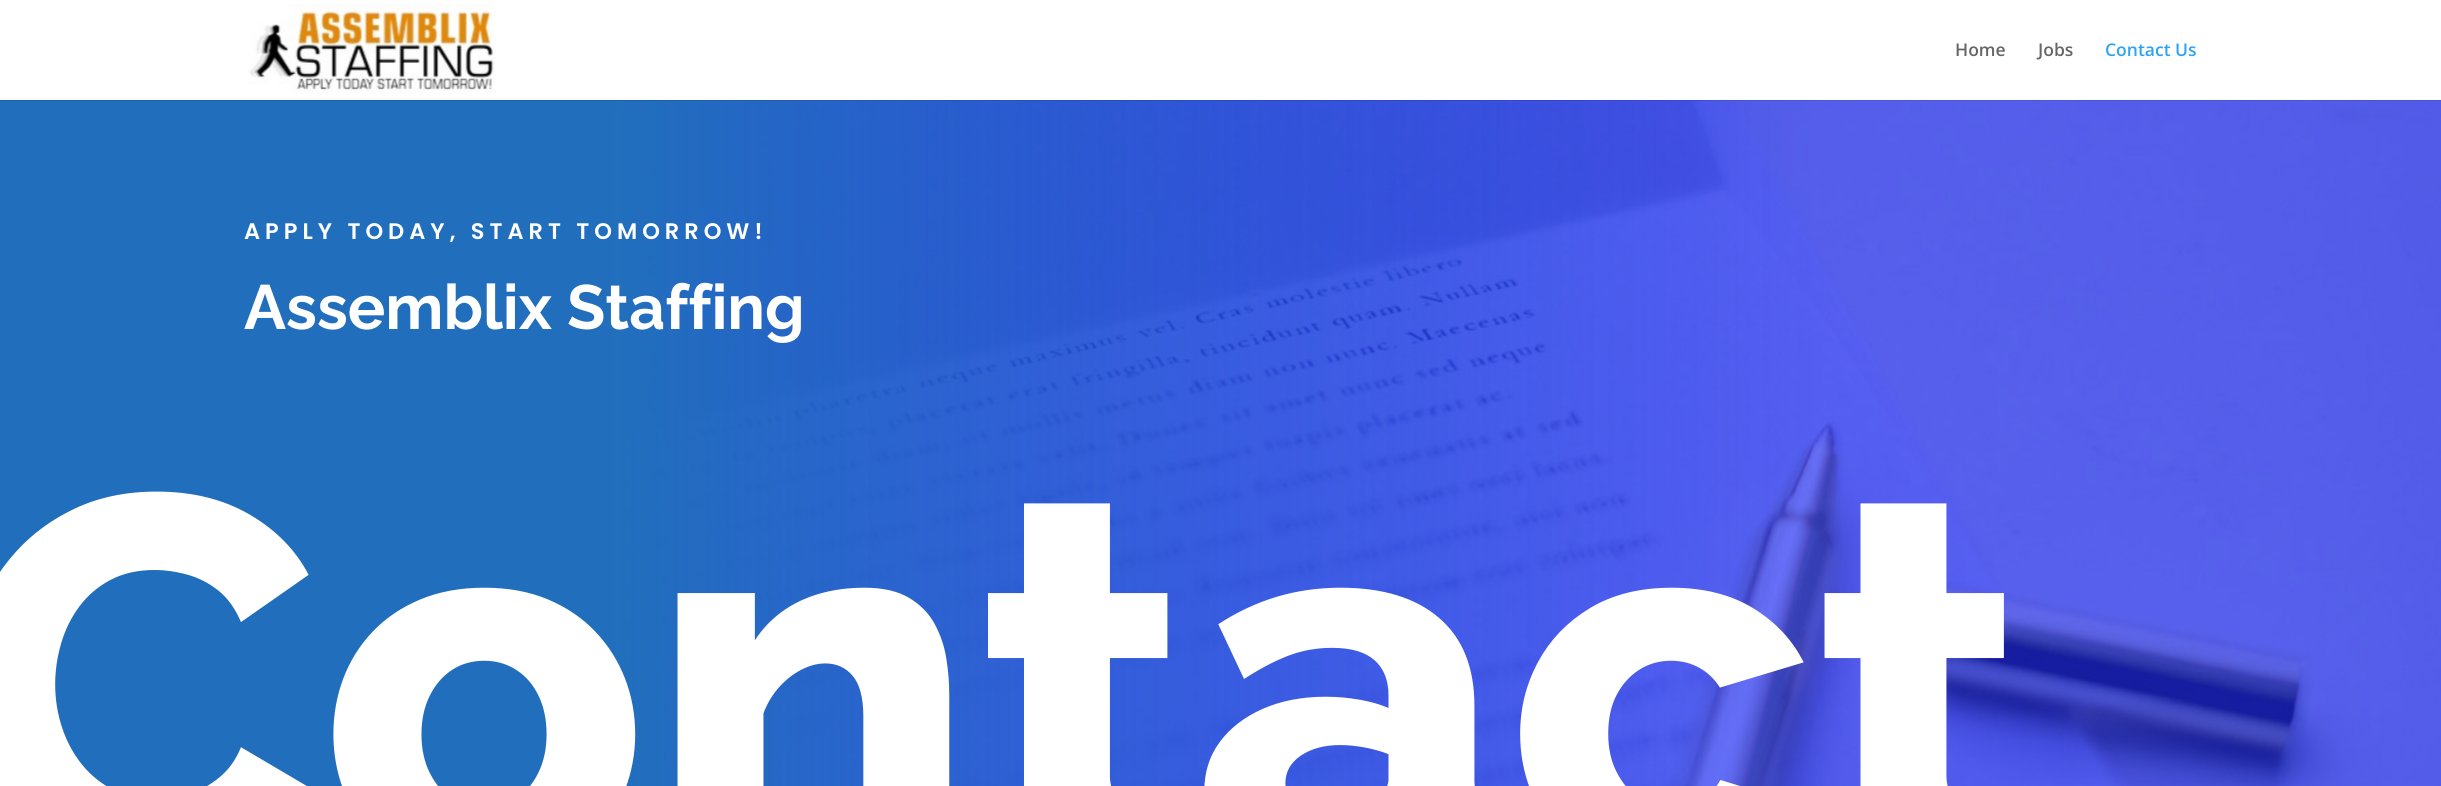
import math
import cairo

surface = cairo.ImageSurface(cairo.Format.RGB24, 2441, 786)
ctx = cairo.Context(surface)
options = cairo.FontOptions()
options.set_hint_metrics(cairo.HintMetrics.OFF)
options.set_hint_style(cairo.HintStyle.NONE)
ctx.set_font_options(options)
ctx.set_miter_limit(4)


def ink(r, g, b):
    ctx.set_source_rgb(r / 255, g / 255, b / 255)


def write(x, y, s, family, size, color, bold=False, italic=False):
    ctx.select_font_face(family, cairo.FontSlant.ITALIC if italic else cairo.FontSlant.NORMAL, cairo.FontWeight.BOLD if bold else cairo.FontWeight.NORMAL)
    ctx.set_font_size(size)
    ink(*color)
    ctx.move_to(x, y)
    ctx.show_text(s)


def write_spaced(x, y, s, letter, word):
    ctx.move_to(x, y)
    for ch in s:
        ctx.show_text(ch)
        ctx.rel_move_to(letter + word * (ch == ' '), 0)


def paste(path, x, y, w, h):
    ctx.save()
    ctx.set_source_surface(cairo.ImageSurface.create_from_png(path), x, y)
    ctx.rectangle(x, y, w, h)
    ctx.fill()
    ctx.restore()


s1 = dict(family="Open Sans SemiBold", size=17.5, color=(102, 102, 102))
s2 = dict(family="Open Sans SemiBold", size=17.5, color=(46, 163, 242))
s3 = dict(family="Raleway", size=62.5, color=(255, 255, 255), bold=True)
s4 = dict(family="Raleway ExtraBold", size=537, color=(255, 255, 255))

ink(255, 255, 255)
ctx.paint()
paste("pic2.png", 0, 100, 2441, 686)
ctx.set_source_rgba(0, 0, 0, 0.1)
ctx.rectangle(0, 100, 2441, 1)
ctx.fill()
paste("pic1.png", 248, 4, 248, 90)
write(1955, 56, "Home", **s1)
write(2038, 56, "Jobs", **s1)
write(2105, 56, "Contact Us", **s2)
ctx.select_font_face("Poppins SemiBold")
ctx.set_font_size(22.5)
ink(255, 255, 255)
write_spaced(244, 239, "APPLY TODAY, START TOMORROW!", 5, 0)
write(244, 329, "Assemblix Staffing", **s3)
write(-49, 875, "Contact", **s4)
surface.write_to_png("screenshot.png")
